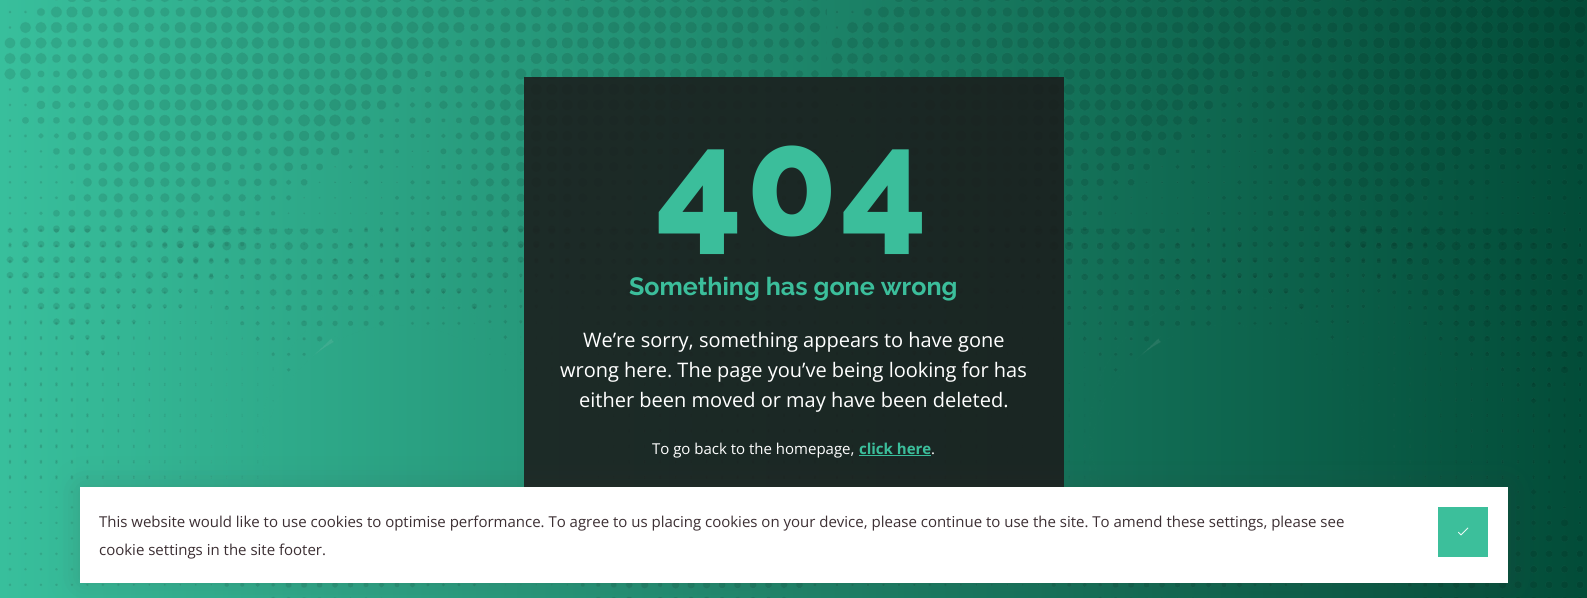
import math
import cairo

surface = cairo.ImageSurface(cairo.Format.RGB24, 1587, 598)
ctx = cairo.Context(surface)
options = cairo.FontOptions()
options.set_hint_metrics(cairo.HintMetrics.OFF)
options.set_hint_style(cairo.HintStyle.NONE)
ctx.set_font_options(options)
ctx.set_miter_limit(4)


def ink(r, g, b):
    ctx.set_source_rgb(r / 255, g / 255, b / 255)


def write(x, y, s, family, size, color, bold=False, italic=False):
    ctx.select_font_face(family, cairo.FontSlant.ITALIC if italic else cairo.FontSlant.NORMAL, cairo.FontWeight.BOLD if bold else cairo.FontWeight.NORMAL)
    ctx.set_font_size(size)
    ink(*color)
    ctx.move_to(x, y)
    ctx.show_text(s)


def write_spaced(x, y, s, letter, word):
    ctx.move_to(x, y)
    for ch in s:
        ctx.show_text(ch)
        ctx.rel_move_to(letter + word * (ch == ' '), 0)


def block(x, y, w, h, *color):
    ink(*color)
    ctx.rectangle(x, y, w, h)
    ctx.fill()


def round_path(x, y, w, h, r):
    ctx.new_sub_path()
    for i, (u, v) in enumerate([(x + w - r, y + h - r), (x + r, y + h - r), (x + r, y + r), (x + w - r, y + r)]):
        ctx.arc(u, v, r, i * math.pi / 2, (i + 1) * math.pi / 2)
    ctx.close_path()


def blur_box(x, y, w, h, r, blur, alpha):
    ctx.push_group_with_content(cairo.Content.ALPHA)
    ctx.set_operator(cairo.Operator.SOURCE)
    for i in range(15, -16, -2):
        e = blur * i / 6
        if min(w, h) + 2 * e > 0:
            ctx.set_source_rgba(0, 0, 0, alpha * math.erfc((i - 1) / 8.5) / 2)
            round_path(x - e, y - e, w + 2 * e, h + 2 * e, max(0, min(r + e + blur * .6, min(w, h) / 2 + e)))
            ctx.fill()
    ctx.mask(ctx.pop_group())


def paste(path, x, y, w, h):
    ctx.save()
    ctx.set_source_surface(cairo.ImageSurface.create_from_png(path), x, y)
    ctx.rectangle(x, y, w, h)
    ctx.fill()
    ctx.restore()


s1 = dict(family="Raleway", size=25, color=(59, 190, 155), bold=True)
s2 = dict(family="Open Sans", size=20, color=(255, 255, 255))
s3 = dict(family="Open Sans", size=15, color=(255, 255, 255))
s4 = dict(family="Open Sans", size=15, color=(59, 190, 155), bold=True)
s5 = dict(family="Open Sans", size=15, color=(60, 47, 51))

ink(255, 255, 255)
ctx.paint()
gradient = cairo.LinearGradient(0, 299, 1587, 299)
gradient.add_color_stop_rgba(0, 0.22, 0.749, 0.612, 1)
gradient.add_color_stop_rgba(1, 0.008, 0.298, 0.22, 1)
ctx.set_source(gradient)
ctx.rectangle(0, 0, 1587, 598)
ctx.fill()
paste("pic1.png", 4, 0, 1582, 598)
ctx.set_source_rgba(0.106, 0.106, 0.106, 0.87)
ctx.rectangle(524, 77, 540, 410)
ctx.fill()
ctx.select_font_face("Raleway ExtraBold")
ctx.set_font_size(150)
ink(59, 190, 155)
write_spaced(656, 235, "404", 3, 0)
write(629, 295, "Something has gone wrong", **s1)
write(583, 347, "We’re sorry, something appears to have gone", **s2)
write(560, 377, "wrong here. The page you’ve being looking for has", **s2)
write(579, 407, "either been moved or may have been deleted.", **s2)
write(652, 454, "To go back to the homepage,", **s3)
write(859, 454, "click here", **s4)
block(859, 455, 72, 1, 56, 191, 156)
write(931, 454, ".", **s3)
ink(60, 47, 51)
blur_box(80, 487, 1428, 96, 0, 14.5, 0.2)
block(80, 487, 1428, 96, 255, 255, 255)
write(99, 527, "This website would like to use cookies to optimise performance. To agree to us placing cookies on your device, please continue to use the site. To amend these settings, please see", **s5)
write(99, 555, "cookie settings in the site footer.", **s5)
block(1438, 507, 50, 50, 60, 191, 155)
paste("pic2.png", 1458, 527, 11, 9)
surface.write_to_png("screenshot.png")
